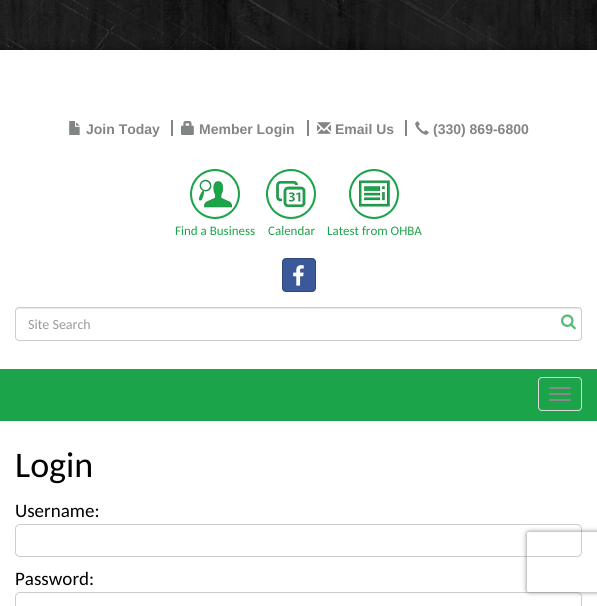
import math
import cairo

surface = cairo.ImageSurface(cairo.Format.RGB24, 597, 606)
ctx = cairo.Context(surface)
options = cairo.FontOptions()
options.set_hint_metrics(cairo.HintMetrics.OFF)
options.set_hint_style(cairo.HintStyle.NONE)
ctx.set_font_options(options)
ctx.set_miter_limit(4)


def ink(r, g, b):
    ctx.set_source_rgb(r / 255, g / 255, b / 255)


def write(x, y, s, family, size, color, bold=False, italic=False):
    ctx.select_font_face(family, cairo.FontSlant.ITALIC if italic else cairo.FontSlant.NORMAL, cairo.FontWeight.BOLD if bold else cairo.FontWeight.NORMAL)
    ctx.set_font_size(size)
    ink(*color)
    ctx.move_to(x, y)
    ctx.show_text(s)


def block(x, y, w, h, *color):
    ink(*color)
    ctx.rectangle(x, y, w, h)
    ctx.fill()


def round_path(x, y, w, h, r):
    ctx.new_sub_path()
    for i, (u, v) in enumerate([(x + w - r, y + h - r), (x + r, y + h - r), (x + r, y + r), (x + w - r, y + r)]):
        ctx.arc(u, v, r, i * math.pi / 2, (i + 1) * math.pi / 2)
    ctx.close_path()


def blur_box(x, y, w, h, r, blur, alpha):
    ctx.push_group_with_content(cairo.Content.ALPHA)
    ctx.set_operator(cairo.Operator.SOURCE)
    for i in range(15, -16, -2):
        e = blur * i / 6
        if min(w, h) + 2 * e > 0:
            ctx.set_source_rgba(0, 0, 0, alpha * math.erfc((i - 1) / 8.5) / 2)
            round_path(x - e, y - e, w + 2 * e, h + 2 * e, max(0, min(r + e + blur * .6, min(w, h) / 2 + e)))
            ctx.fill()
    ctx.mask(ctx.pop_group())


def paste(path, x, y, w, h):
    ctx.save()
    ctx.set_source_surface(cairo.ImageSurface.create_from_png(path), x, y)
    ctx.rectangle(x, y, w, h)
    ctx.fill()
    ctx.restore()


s1 = dict(family="Liberation Sans", size=14, color=(129, 134, 130), bold=True)
s2 = dict(family="Carlito", size=13, color=(28, 164, 74))
s3 = dict(family="Carlito", size=14, color=(153, 153, 153))
s4 = dict(family="Carlito", size=36, color=(0, 0, 0))
s5 = dict(family="Carlito", size=19, color=(0, 0, 0))

ink(0, 0, 0)
ctx.paint()
paste("pic1.png", 0, 0, 597, 50)
blur_box(0, 50, 597, 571, 0, 5, 0.5)
block(0, 50, 597, 556, 255, 255, 255)
paste("pic2.png", 69, 121, 11, 14)
write(86, 134, "Join Today", **s1)
block(171, 120, 2, 16, 129, 134, 130)
paste("pic3.png", 181, 121, 13, 14)
write(199, 134, "Member Login", **s1)
block(307, 120, 2, 16, 129, 134, 130)
paste("pic4.png", 317, 122, 14, 12)
write(335, 134, "Email Us", **s1)
block(405, 120, 2, 16, 129, 134, 130)
paste("pic5.png", 415, 121, 14, 14)
write(433, 134, "(330) 869-6800", **s1)
ink(28, 164, 74)
ctx.new_path()
ctx.arc(215, 194, 24, 0, 2 * math.pi)
ctx.fill_preserve()
ctx.stroke()
paste("pic6.png", 192, 171, 46, 46)
write(175, 235, "Find a Business", **s2)
ctx.new_path()
ctx.arc(291, 194, 24, 0, 2 * math.pi)
ctx.fill_preserve()
ctx.stroke()
paste("pic7.png", 268, 171, 46, 46)
write(268, 235, "Calendar", **s2)
ctx.new_path()
ctx.arc(374, 194, 24, 0, 2 * math.pi)
ctx.fill_preserve()
ctx.stroke()
paste("pic8.png", 351, 171, 46, 46)
write(327, 235, "Latest from OHBA", **s2)
ink(59, 89, 152)
round_path(282, 258, 34, 34, 4)
ctx.fill()
round_path(282.5, 258.5, 33, 33, 3.5)
ctx.set_source_rgba(0, 0, 0, 0.2)
ctx.set_line_width(1)
ctx.stroke()
paste("pic9.png", 293, 265, 11, 21)
ink(236, 236, 236)
ctx.new_path()
ctx.move_to(19, 309)
ctx.line_to(578, 309)
ctx.curve_to(580, 309, 581, 310, 581, 312)
ctx.line_to(581, 311)
ctx.curve_to(581, 309, 580, 308, 578, 308)
ctx.line_to(19, 308)
ctx.curve_to(17, 308, 16, 309, 16, 311)
ctx.line_to(16, 312)
ctx.curve_to(16, 310, 17, 309, 19, 309)
ctx.close_path()
ctx.fill()
round_path(15.5, 307.5, 566, 33, 3.5)
ink(204, 204, 204)
ctx.stroke()
write(28, 329, "Site Search", **s3)
paste("pic10.png", 561, 314, 15, 16)
block(0, 369, 597, 52, 28, 164, 74)
round_path(538.5, 377.5, 43, 33, 3.5)
ink(221, 221, 221)
ctx.stroke()
ink(136, 136, 136)
round_path(549, 387, 22, 2, 1)
ctx.fill()
round_path(549, 393, 22, 2, 1)
ctx.fill()
round_path(549, 399, 22, 2, 1)
ctx.fill()
write(15, 477, "Login", **s4)
write(15, 517, "Username:", **s5)
round_path(15.5, 524.5, 566, 32, 4.5)
ink(204, 204, 204)
ctx.stroke()
write(15, 585, "Password:", **s5)
round_path(15.5, 592.5, 566, 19, 4.5)
ink(204, 204, 204)
ctx.stroke()
ctx.save()
ctx.set_fill_rule(cairo.FillRule.EVEN_ODD)
ctx.new_path()
ctx.move_to(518, 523)
ctx.line_to(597, 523)
ctx.line_to(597, 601)
ctx.line_to(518, 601)
ctx.close_path()
ctx.move_to(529, 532)
ctx.line_to(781, 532)
ctx.curve_to(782, 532, 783, 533, 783, 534)
ctx.line_to(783, 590)
ctx.curve_to(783, 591, 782, 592, 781, 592)
ctx.line_to(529, 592)
ctx.curve_to(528, 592, 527, 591, 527, 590)
ctx.line_to(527, 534)
ctx.curve_to(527, 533, 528, 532, 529, 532)
ctx.close_path()
ctx.clip()
ink(128, 128, 128)
blur_box(527, 532, 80, 60, 2, 2.5, 1)
ctx.restore()
surface.write_to_png("screenshot.png")
